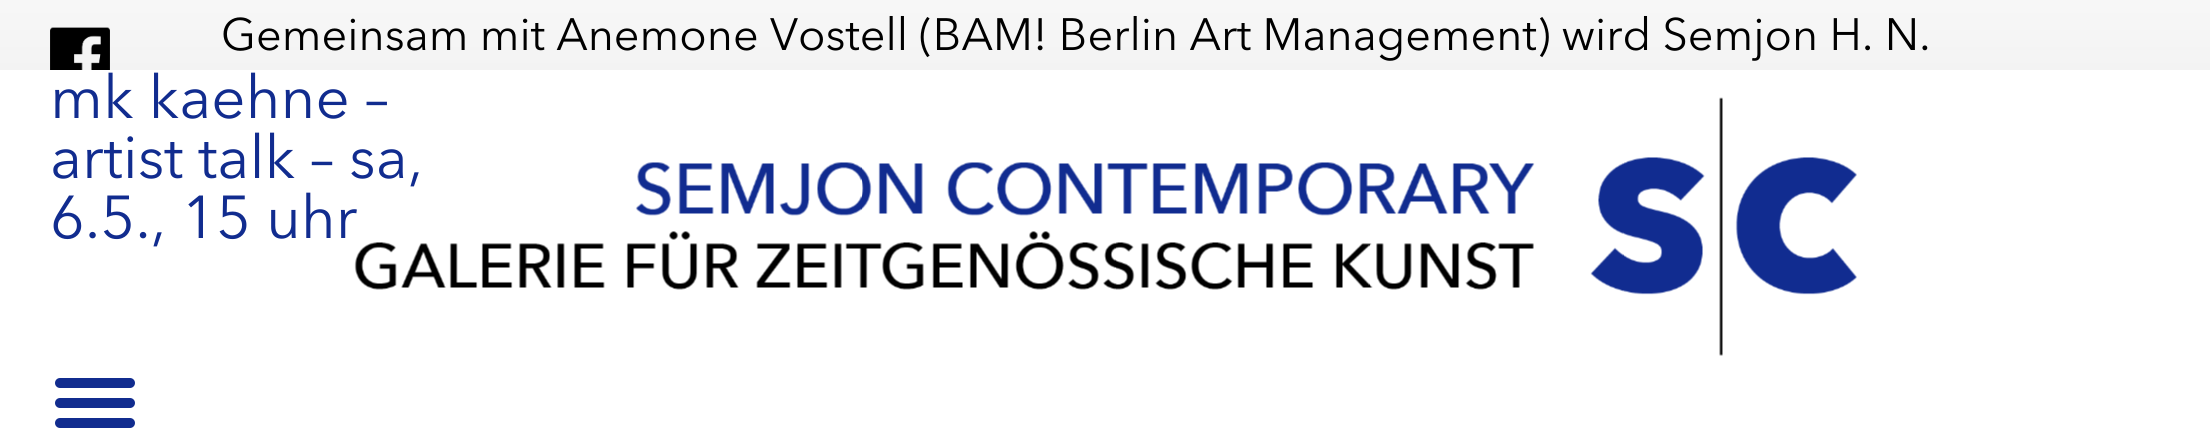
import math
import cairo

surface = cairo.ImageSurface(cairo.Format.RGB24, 2210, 442)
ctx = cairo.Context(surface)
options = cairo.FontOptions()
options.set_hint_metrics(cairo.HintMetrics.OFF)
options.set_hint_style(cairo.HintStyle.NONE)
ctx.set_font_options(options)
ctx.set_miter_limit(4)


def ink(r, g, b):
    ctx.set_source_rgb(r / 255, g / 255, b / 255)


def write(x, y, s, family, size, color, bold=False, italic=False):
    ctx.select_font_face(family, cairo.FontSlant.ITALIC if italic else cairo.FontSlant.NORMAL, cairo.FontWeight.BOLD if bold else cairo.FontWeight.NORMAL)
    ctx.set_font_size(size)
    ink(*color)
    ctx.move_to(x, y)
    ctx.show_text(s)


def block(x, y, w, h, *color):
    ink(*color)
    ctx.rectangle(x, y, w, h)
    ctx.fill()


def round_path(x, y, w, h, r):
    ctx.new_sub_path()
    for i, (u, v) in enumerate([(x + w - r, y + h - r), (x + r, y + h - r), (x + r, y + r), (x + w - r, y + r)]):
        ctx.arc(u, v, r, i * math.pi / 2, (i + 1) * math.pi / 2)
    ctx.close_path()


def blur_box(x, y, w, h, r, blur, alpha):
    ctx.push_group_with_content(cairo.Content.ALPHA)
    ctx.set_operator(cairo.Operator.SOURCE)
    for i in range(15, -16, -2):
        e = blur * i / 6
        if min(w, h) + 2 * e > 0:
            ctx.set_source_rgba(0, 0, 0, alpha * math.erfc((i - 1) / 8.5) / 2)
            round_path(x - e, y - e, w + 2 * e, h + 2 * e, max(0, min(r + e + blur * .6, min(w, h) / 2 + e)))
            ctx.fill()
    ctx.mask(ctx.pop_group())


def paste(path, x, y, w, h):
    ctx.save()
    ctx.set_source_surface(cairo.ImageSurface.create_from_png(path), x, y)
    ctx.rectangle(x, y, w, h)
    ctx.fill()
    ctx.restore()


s1 = dict(family="Avenir Next", size=45, color=(0, 0, 0))
s2 = dict(family="Avenir Next", size=60, color=(17, 44, 143))

ink(255, 255, 255)
ctx.paint()
paste("pic2.png", 50, 27, 60, 43)
ink(0, 0, 0)
blur_box(-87, -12, 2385, 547, 0, 50, 0.05)
block(0, 70, 2210, 372, 255, 255, 255)
paste("pic1.png", 354, 97, 1503, 259)
write(221, 50, "Gemeinsam mit Anemone Vostell (BAM! Berlin Art Management) wird Semjon H. N.", **s1)
write(50, 118, "mk kaehne –", **s2)
write(50, 178, "artist talk – sa,", **s2)
write(50, 238, "6.5., 15 uhr", **s2)
round_path(55, 378, 80, 10, 5)
ctx.fill()
round_path(55, 398, 80, 10, 5)
ctx.fill()
round_path(55, 418, 80, 10, 5)
ctx.fill()
surface.write_to_png("screenshot.png")
